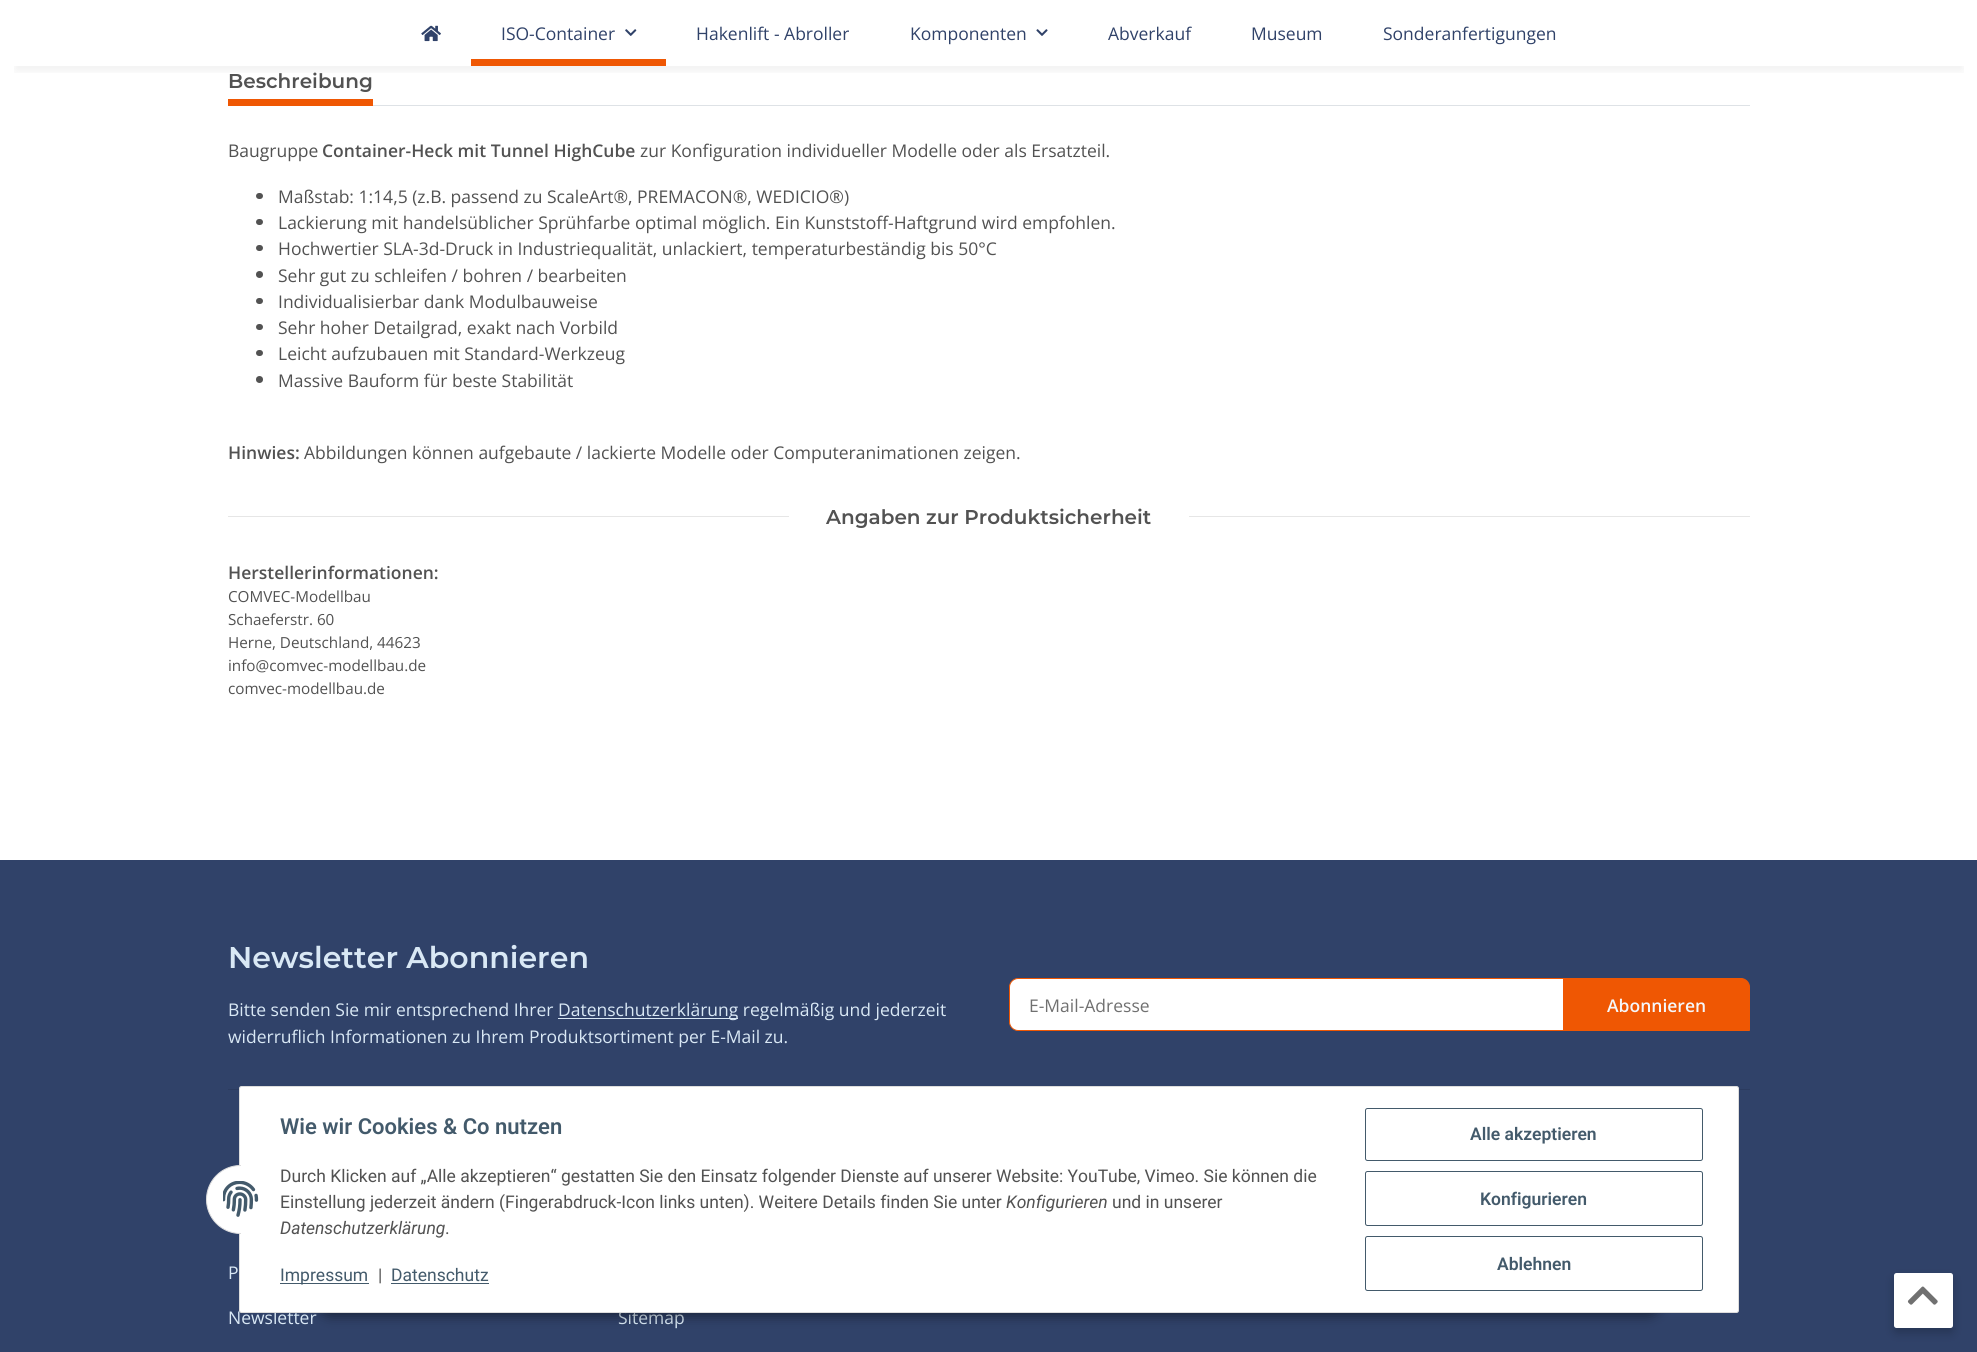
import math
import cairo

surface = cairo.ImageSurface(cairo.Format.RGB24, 1977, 1352)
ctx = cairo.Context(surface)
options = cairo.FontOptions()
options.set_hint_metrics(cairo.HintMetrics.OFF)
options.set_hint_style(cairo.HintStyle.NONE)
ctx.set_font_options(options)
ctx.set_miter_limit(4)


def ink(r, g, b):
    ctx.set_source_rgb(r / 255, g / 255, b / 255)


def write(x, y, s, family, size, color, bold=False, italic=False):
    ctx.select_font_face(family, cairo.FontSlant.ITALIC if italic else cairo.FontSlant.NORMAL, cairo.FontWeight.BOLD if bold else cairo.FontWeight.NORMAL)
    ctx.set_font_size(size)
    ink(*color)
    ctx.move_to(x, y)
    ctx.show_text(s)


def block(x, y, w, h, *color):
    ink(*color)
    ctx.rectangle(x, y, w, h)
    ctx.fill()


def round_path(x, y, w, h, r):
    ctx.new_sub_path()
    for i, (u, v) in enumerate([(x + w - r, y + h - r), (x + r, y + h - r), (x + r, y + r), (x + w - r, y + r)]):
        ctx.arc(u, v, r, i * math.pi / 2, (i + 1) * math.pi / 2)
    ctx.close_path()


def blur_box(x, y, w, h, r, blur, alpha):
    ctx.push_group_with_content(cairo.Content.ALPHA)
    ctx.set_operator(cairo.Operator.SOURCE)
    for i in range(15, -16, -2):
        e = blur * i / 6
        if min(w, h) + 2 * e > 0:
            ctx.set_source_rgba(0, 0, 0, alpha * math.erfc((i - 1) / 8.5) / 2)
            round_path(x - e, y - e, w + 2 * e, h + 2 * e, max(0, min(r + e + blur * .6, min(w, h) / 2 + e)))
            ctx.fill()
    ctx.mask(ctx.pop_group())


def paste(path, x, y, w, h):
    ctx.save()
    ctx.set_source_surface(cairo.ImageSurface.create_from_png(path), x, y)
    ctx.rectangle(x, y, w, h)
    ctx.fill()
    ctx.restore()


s1 = dict(family="Open Sans", size=17.5, color=(48, 66, 105))
s2 = dict(family="Montserrat SemiBold", size=20, color=(82, 82, 82))
s3 = dict(family="Open Sans", size=17.5, color=(82, 82, 82))
s4 = dict(family="Open Sans SemiBold", size=17.5, color=(82, 82, 82))
s5 = dict(family="Open Sans", size=15.25, color=(82, 82, 82))
s6 = dict(family="Montserrat SemiBold", size=30, color=(217, 232, 245))
s7 = dict(family="Open Sans", size=17.5, color=(217, 232, 245))
s8 = dict(family="Open Sans", size=17.5, color=(112, 112, 112))
s9 = dict(family="Open Sans SemiBold", size=17.5, color=(245, 247, 250))
s10 = dict(family="Roboto SemiBold", size=22, color=(67, 90, 107))
s11 = dict(family="Roboto", size=17.5, color=(82, 82, 82))
s12 = dict(family="Roboto", size=17.5, color=(82, 82, 82), italic=True)
s13 = dict(family="Roboto", size=17.5, color=(67, 90, 107))
s14 = dict(family="Roboto SemiBold", size=17.5, color=(67, 90, 107))

ink(255, 255, 255)
ctx.paint()
ctx.save()
ctx.rectangle(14, 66, 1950, 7)
ctx.clip()
ink(0, 0, 0)
blur_box(15, 35, 1948, 36, 0, 5.5, 0.06)
ctx.restore()
paste("pic1.png", 421, 25, 20, 17)
write(501, 40, "ISO-Container", **s1)
paste("pic2.png", 625, 29, 12, 7)
block(471, 59, 195, 7, 239, 87, 3)
write(696, 40, "Hakenlift - Abroller", **s1)
write(910, 40, "Komponenten", **s1)
paste("pic3.png", 1036, 29, 12, 7)
write(1108, 40, "Abverkauf", **s1)
write(1251, 40, "Museum", **s1)
write(1383, 40, "Sonderanfertigungen", **s1)
block(373, 105, 1377, 1, 222, 226, 230)
write(228, 88, "Beschreibung", **s2)
block(228, 99, 145, 7, 239, 87, 3)
write(228, 157, "Baugruppe", **s3)
write(322, 157, "Container-Heck mit Tunnel HighCube", **s4)
write(640, 157, "zur Konfiguration individueller Modelle oder als Ersatzteil.", **s3)
round_path(256, 193, 7, 6, 3)
ctx.fill()
write(278, 203, "Maßstab: 1:14,5 (z.B. passend zu ScaleArt®, PREMACON®, WEDICIO®)", **s3)
round_path(256, 219, 7, 6, 3)
ctx.fill()
write(278, 229, "Lackierung mit handelsüblicher Sprühfarbe optimal möglich. Ein Kunststoff-Haftgrund wird empfohlen.", **s3)
round_path(256, 245, 7, 6, 3)
ctx.fill()
write(278, 255, "Hochwertier SLA-3d-Druck in Industriequalität, unlackiert, temperaturbeständig bis 50°C", **s3)
ctx.new_path()
ctx.arc(259.5, 274.5, 3.5, 0, 2 * math.pi)
ctx.fill()
write(278, 282, "Sehr gut zu schleifen / bohren / bearbeiten", **s3)
round_path(256, 298, 7, 6, 3)
ctx.fill()
write(278, 308, "Individualisierbar dank Modulbauweise", **s3)
round_path(256, 324, 7, 6, 3)
ctx.fill()
write(278, 334, "Sehr hoher Detailgrad, exakt nach Vorbild", **s3)
round_path(256, 350, 7, 6, 3)
ctx.fill()
write(278, 360, "Leicht aufzubauen mit Standard-Werkzeug", **s3)
ctx.new_path()
ctx.arc(259.5, 379.5, 3.5, 0, 2 * math.pi)
ctx.fill()
write(278, 387, "Massive Bauform für beste Stabilität", **s3)
write(228, 459, "Hinwies:", **s4)
write(304, 459, "Abbildungen können aufgebaute / lackierte Modelle oder Computeranimationen zeigen.", **s3)
block(228, 516, 561, 1, 230, 230, 230)
write(826, 524, "Angaben zur Produktsicherheit", **s2)
block(1189, 516, 561, 1, 230, 230, 230)
write(228, 579, "Herstellerinformationen:", **s4)
write(228, 602, "COMVEC-Modellbau", **s5)
write(228, 625, "Schaeferstr. 60", **s5)
write(228, 648, "Herne, Deutschland, 44623", **s5)
write(228, 671, "info@comvec-modellbau.de", **s5)
write(228, 694, "comvec-modellbau.de", **s5)
block(0, 860, 1977, 492, 48, 66, 105)
write(228, 968, "Newsletter Abonnieren", **s6)
write(228, 1016, "Bitte senden Sie mir entsprechend Ihrer", **s7)
block(558, 1018, 180, 1, 217, 232, 245)
write(558, 1016, "Datenschutzerklärung regelmäßig und jederzeit", **s7)
write(228, 1043, "widerruflich Informationen zu Ihrem Produktsortiment per E-Mail zu.", **s7)
ink(255, 255, 255)
ctx.new_path()
ctx.move_to(1018, 978.5)
ctx.line_to(1563.5, 978.5)
ctx.line_to(1563.5, 1030.5)
ctx.line_to(1018, 1030.5)
ctx.curve_to(1013.5, 1030.5, 1009.5, 1026.5, 1009.5, 1022)
ctx.line_to(1009.5, 987)
ctx.curve_to(1009.5, 982.5, 1013.5, 978.5, 1018, 978.5)
ctx.close_path()
ctx.fill_preserve()
ink(239, 87, 3)
ctx.set_line_width(1)
ctx.stroke()
write(1029, 1012, "E-Mail-Adresse", **s8)
ink(239, 87, 3)
ctx.new_path()
ctx.move_to(1563.5, 978.5)
ctx.line_to(1741, 978.5)
ctx.curve_to(1745.5, 978.5, 1749.5, 982.5, 1749.5, 987)
ctx.line_to(1749.5, 1030)
ctx.curve_to(1749.5, 1030.5, 1749.5, 1030.5, 1749, 1030.5)
ctx.line_to(1563.5, 1030.5)
ctx.close_path()
ctx.fill_preserve()
ctx.stroke()
write(1607, 1012, "Abonnieren", **s9)
block(228, 1089, 1522, 1, 43, 59, 95)
write(228, 1279, "P", **s7)
write(228, 1324, "Newsletter", **s7)
write(618, 1324, "Sitemap", **s7)
ink(0, 0, 0)
blur_box(1894, 1278, 59, 55, 2.5, 5, 0.2)
ink(255, 255, 255)
round_path(1894, 1273, 59, 55, 2.5)
ctx.fill()
paste("pic4.png", 1907, 1286, 31, 19)
ink(0, 0, 0)
blur_box(315, 1276, 1348, 40, 20, 6, 0.45)
ink(255, 255, 255)
round_path(239.5, 1086.5, 1499, 226, 2)
ctx.fill_preserve()
ink(221, 221, 221)
ctx.stroke()
ink(255, 255, 255)
ctx.arc(240.5, 1199.5, 34, 0, 2 * math.pi)
ctx.fill_preserve()
ink(221, 221, 221)
ctx.stroke()
block(241, 1165, 34, 69, 255, 255, 255)
paste("pic5.png", 223, 1181, 36, 36)
write(280, 1134, "Wie wir Cookies & Co nutzen", **s10)
write(280, 1182, "Durch Klicken auf „Alle akzeptieren“ gestatten Sie den Einsatz folgender Dienste auf unserer Website: YouTube, Vimeo. Sie können die", **s11)
write(280, 1208, "Einstellung jederzeit ändern (Fingerabdruck-Icon links unten). Weitere Details finden Sie unter", **s11)
write(1006, 1208, "Konfigurieren", **s12)
write(1112, 1208, "und in unserer", **s11)
write(280, 1234, "Datenschutzerklärung", **s12)
write(445, 1234, ".", **s11)
block(280, 1283, 89, 1, 67, 90, 107)
write(280, 1281, "Impressum", **s13)
write(378, 1281, "|", **s11)
write(391, 1281, "Datenschutz", **s13)
block(391, 1283, 98, 1, 67, 90, 107)
round_path(1365.5, 1108.5, 337, 52, 2)
ctx.stroke()
write(1470, 1140, "Alle akzeptieren", **s14)
round_path(1365.5, 1171.5, 337, 54, 2)
ctx.stroke()
write(1480, 1205, "Konfigurieren", **s14)
round_path(1365.5, 1236.5, 337, 54, 2)
ctx.stroke()
write(1497, 1270, "Ablehnen", **s14)
surface.write_to_png("screenshot.png")
